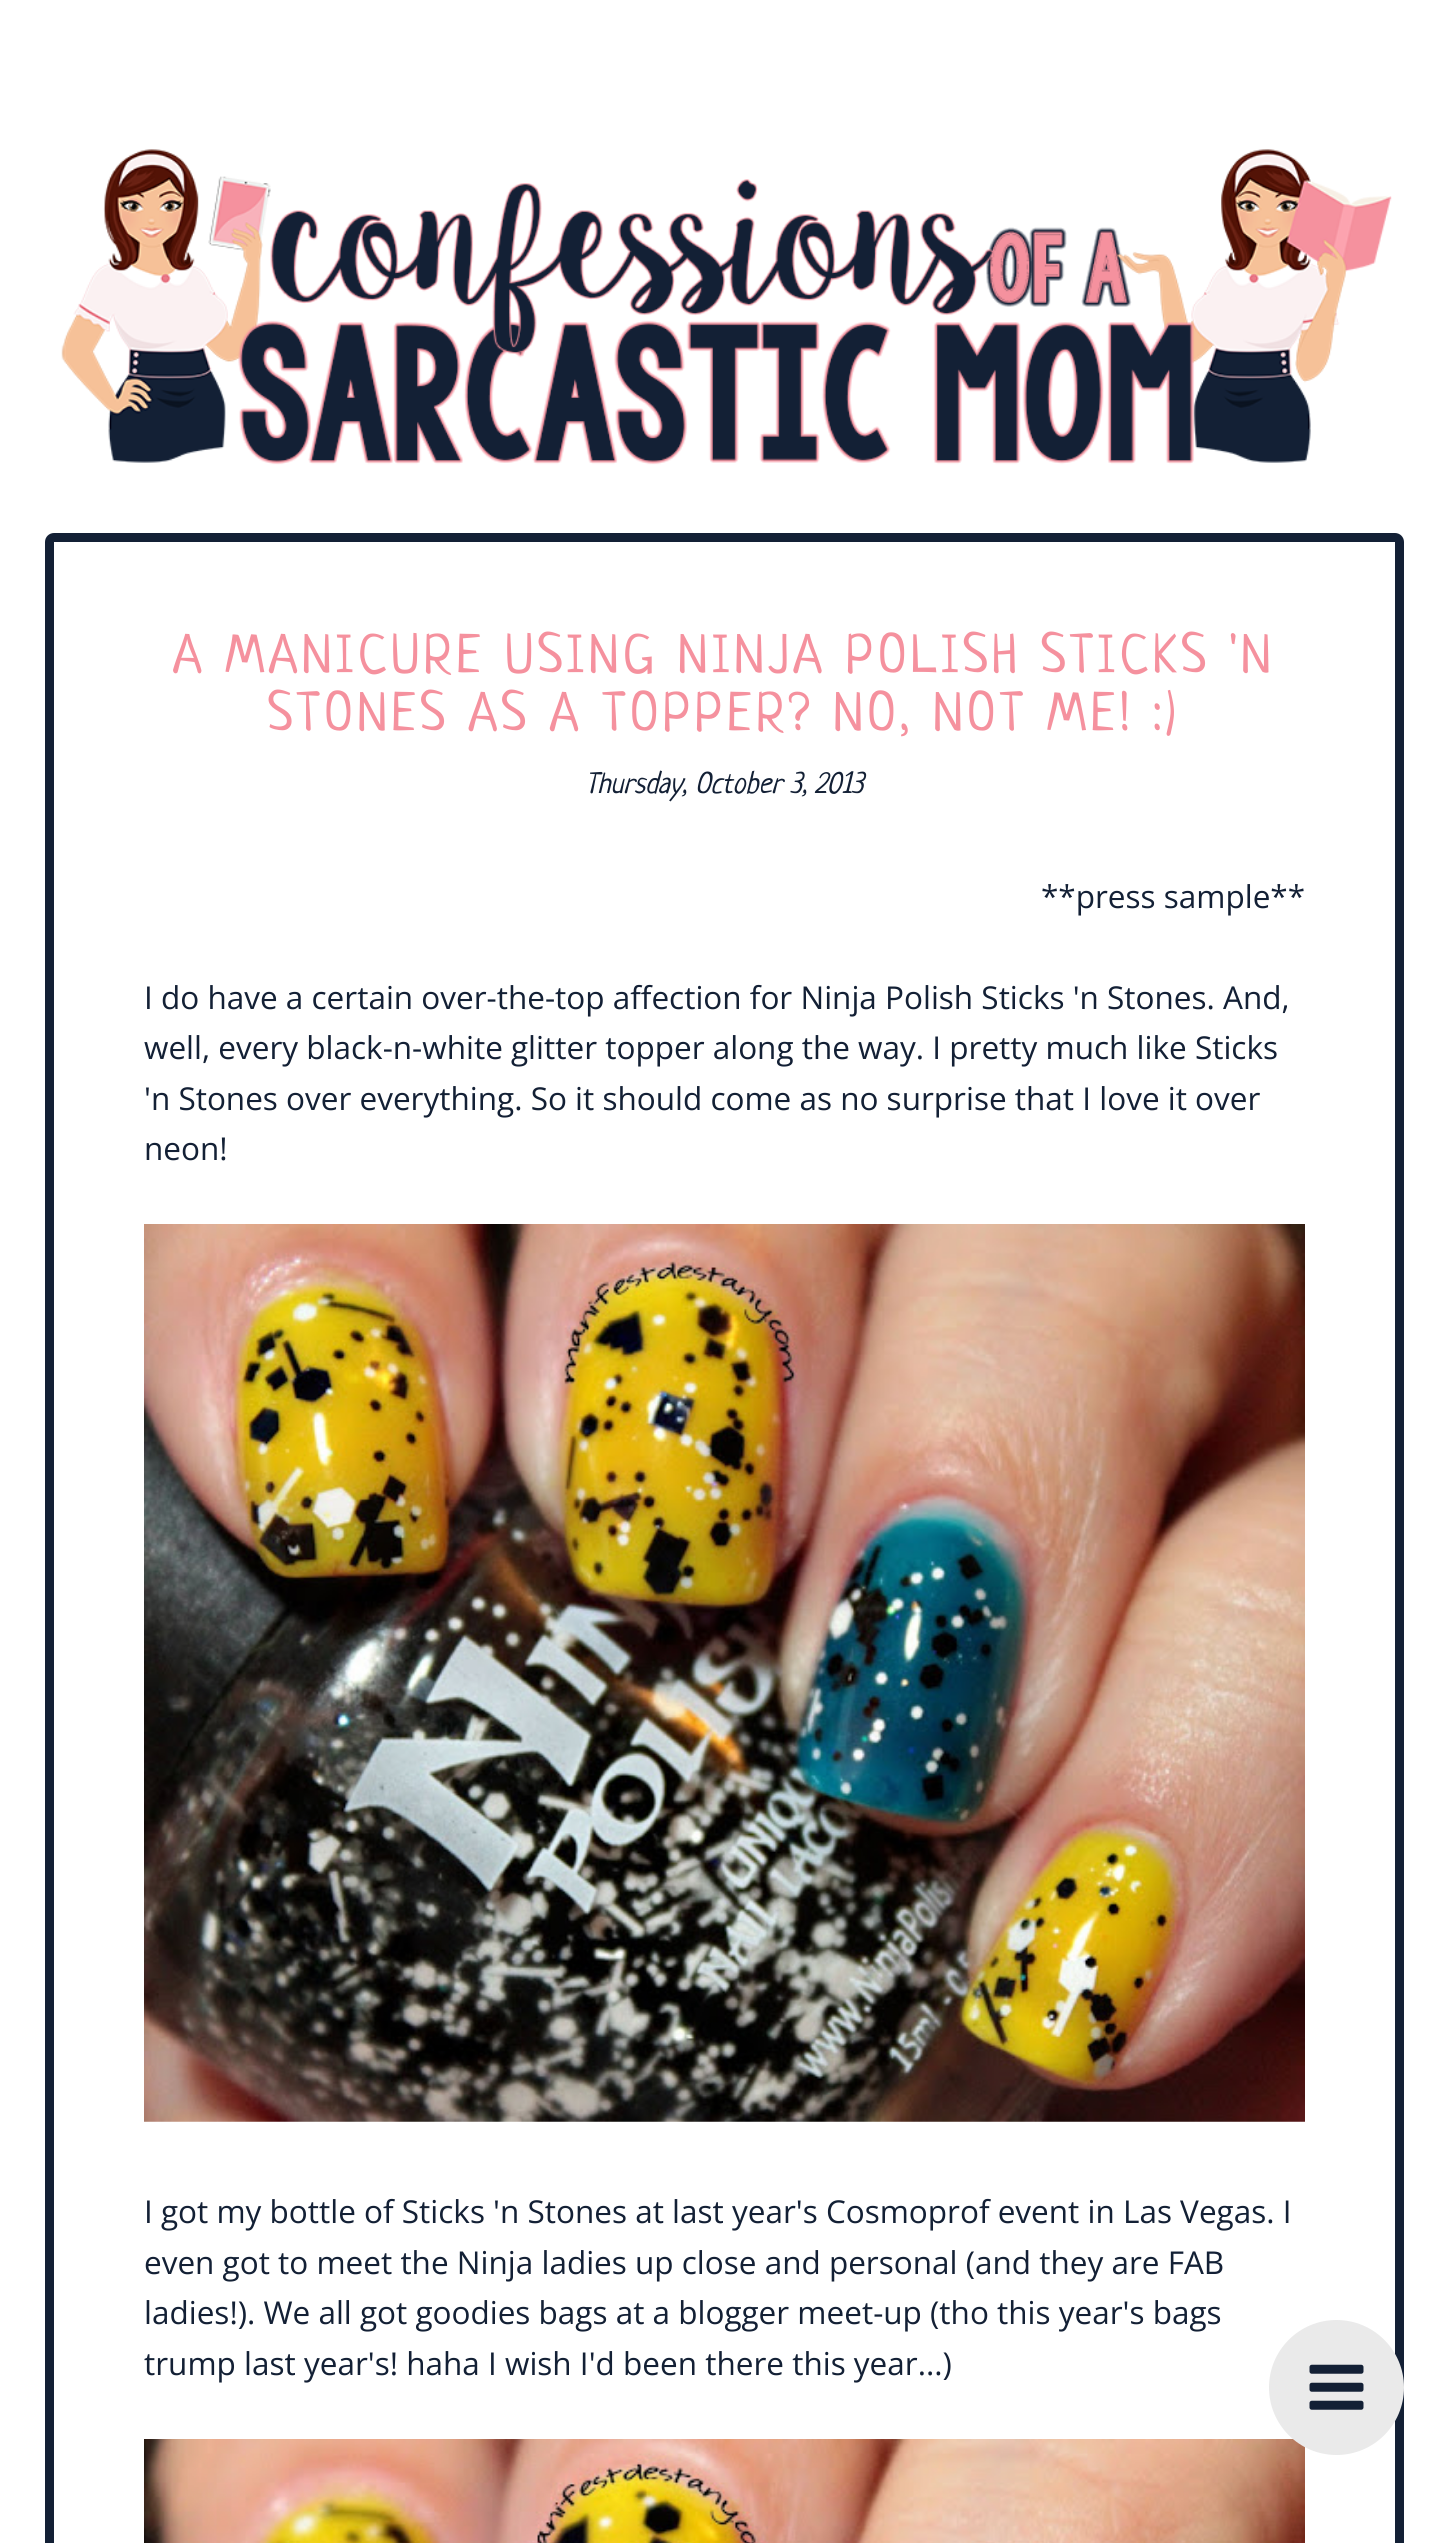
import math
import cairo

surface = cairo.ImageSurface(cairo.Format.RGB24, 1449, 2543)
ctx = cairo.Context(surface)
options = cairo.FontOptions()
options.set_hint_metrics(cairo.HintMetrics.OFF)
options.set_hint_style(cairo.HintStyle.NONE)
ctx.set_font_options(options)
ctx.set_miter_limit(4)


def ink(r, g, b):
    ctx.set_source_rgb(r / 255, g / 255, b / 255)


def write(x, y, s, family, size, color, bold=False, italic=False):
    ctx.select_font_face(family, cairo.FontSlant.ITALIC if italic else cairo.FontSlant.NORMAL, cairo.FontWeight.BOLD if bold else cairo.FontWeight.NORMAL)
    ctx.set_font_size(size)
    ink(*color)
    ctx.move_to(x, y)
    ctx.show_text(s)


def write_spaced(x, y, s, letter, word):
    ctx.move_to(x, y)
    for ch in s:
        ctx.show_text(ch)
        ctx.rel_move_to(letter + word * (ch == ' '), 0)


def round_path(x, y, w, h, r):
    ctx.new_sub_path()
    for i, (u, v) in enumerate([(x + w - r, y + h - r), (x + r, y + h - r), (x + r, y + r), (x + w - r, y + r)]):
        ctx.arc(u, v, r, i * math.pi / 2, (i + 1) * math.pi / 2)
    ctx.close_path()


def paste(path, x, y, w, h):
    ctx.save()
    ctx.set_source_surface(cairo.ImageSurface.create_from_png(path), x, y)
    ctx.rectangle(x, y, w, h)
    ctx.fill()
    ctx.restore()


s1 = dict(family="Neucha", size=29.25, color=(19, 32, 53), italic=True)
s2 = dict(family="Open Sans", size=31.5, color=(19, 32, 53))

ink(255, 255, 255)
ctx.paint()
paste("pic1.png", 61, 149, 1331, 316)
round_path(49.5, 537.5, 1350, 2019, 4.5)
ink(19, 32, 53)
ctx.set_line_width(9)
ctx.stroke()
ctx.select_font_face("Neucha")
ctx.set_font_size(54)
ink(245, 145, 158)
write_spaced(173, 672, "A MANICURE USING NINJA POLISH STICKS 'N", 4.5, 0)
write_spaced(268, 730, "STONES AS A TOPPER? NO, NOT ME! :)", 4.5, 0)
write(585, 793, "Thursday, October 3, 2013", **s1)
write(1041, 908, "**press sample**", **s2)
write(144, 1009, "I do have a certain over-the-top affection for Ninja Polish Sticks 'n Stones. And,", **s2)
write(144, 1059, "well, every black-n-white glitter topper along the way. I pretty much like Sticks", **s2)
write(144, 1110, "'n Stones over everything. So it should come as no surprise that I love it over", **s2)
write(144, 1160, "neon!", **s2)
paste("pic2.png", 144, 1224, 1161, 898)
write(144, 2223, "I got my bottle of Sticks 'n Stones at last year's Cosmoprof event in Las Vegas. I", **s2)
write(144, 2274, "even got to meet the Ninja ladies up close and personal (and they are FAB", **s2)
write(144, 2324, "ladies!). We all got goodies bags at a blogger meet-up (tho this year's bags", **s2)
write(144, 2375, "trump last year's! haha I wish I'd been there this year...)", **s2)
paste("pic3.png", 144, 2439, 1161, 104)
ink(234, 234, 234)
ctx.arc(1336.5, 2387.5, 67.5, 0, 2 * math.pi)
ctx.fill()
paste("pic4.png", 1309, 2364, 55, 46)
surface.write_to_png("screenshot.png")
